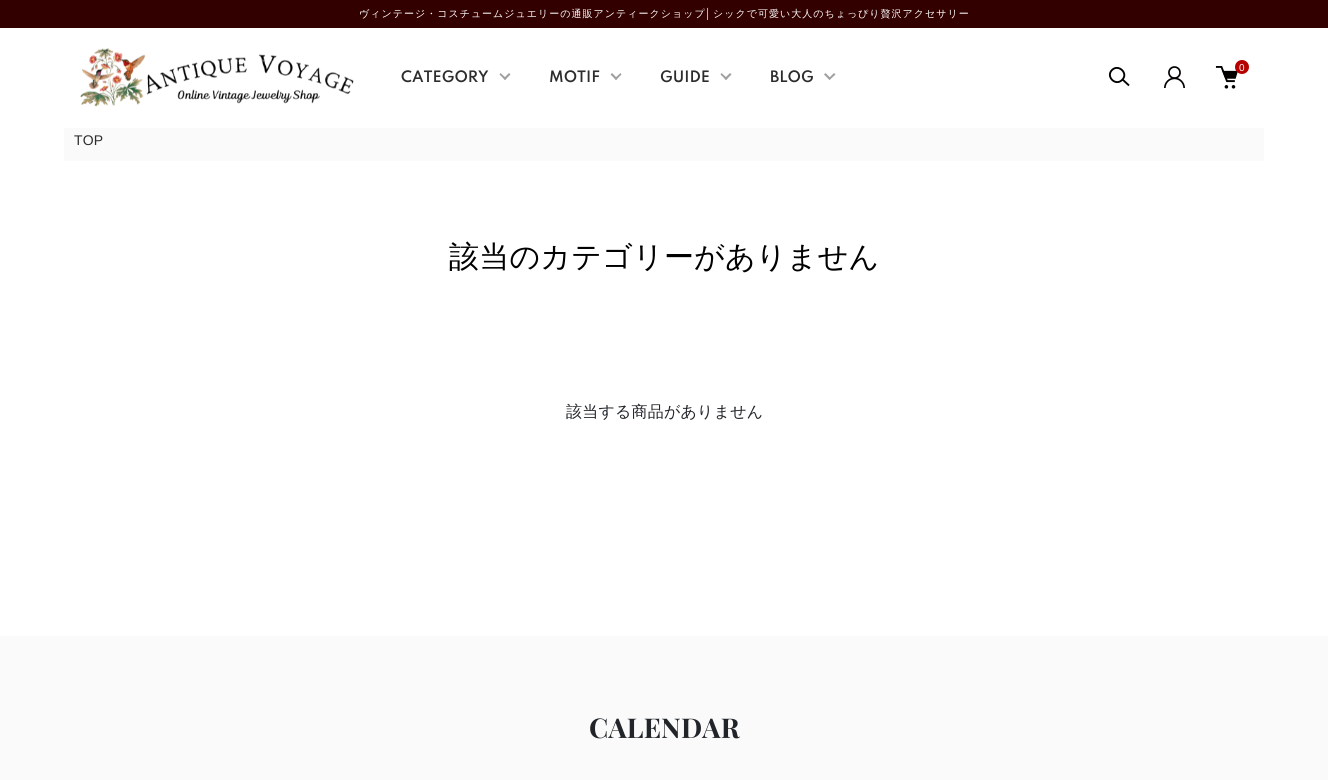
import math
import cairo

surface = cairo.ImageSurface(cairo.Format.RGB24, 1328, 780)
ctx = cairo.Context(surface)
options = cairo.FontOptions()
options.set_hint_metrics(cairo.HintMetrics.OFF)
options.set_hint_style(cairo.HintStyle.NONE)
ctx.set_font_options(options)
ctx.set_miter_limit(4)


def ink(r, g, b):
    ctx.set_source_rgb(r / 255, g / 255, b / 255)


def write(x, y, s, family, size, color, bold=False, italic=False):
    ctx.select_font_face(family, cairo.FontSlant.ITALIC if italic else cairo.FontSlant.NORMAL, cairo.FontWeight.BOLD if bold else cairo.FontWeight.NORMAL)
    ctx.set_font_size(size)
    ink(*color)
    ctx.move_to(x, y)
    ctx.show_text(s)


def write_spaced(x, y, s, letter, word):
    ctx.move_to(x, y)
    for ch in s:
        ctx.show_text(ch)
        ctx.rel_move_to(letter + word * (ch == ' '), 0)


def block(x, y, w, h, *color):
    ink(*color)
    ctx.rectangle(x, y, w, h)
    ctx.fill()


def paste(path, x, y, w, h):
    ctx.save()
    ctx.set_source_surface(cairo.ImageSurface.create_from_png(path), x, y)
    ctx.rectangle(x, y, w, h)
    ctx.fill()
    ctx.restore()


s1 = dict(family="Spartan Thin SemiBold", size=14, color=(45, 45, 45))

ink(255, 255, 255)
ctx.paint()
block(0, 0, 1328, 28, 51, 0, 0)
ctx.select_font_face("WenQuanYi Zen Hei Medium")
ctx.set_font_size(10)
ink(255, 255, 255)
write_spaced(359, 17, "ヴィンテージ・コスチュームジュエリーの通販アンティークショップ", 1, 0)
ctx.select_font_face("Liberation Sans")
write_spaced(705, 17, "│", 1, 0)
ctx.select_font_face("WenQuanYi Zen Hei Medium")
write_spaced(713, 17, "シックで可愛い大人のちょっぴり贅沢アクセサリー", 1, 0)
paste("pic1.png", 80, 48, 274, 59)
ctx.new_path()
ctx.move_to(1112, 70)
ctx.curve_to(1118.5, 63.5, 1129, 73.5, 1122, 80)
ctx.curve_to(1115.5, 86.5, 1105.5, 76.5, 1112, 70)
ctx.close_path()
ctx.move_to(1122, 79)
ctx.line_to(1129, 85.5)
ink(3, 0, 0)
ctx.set_line_width(1.9)
ctx.stroke()
paste("pic2.png", 1164, 66, 21, 22)
paste("pic3.png", 1215, 66, 23, 23)
ink(182, 0, 0)
ctx.arc(1242, 67, 7, 0, 2 * math.pi)
ctx.fill()
ctx.select_font_face("Liberation Sans")
ink(255, 255, 255)
write_spaced(1239, 71, "0", 0.2, 0)
write(401, 82, "CATEGORY", **s1)
ink(160, 160, 160)
ctx.new_path()
ctx.move_to(509, 73)
ctx.line_to(510.5, 74.5)
ctx.line_to(505, 80)
ctx.line_to(503.5, 78.5)
ctx.close_path()
ctx.fill()
ctx.new_path()
ctx.move_to(500.5, 73)
ctx.line_to(506.5, 78.5)
ctx.line_to(505, 80)
ctx.line_to(499.5, 74.5)
ctx.close_path()
ctx.fill()
write(549, 82, "MOTIF", **s1)
ink(160, 160, 160)
ctx.new_path()
ctx.move_to(620.5, 73)
ctx.line_to(621.5, 74.5)
ctx.line_to(616, 80)
ctx.line_to(614.5, 78.5)
ctx.close_path()
ctx.fill()
ctx.new_path()
ctx.move_to(612, 73)
ctx.line_to(617.5, 78.5)
ctx.line_to(616, 80)
ctx.line_to(610.5, 74.5)
ctx.close_path()
ctx.fill()
write(660, 82, "GUIDE", **s1)
ink(160, 160, 160)
ctx.new_path()
ctx.move_to(730, 73)
ctx.line_to(731.5, 74.5)
ctx.line_to(726, 80)
ctx.line_to(724.5, 78.5)
ctx.close_path()
ctx.fill()
ctx.new_path()
ctx.move_to(721.5, 73)
ctx.line_to(727.5, 78.5)
ctx.line_to(726, 80)
ctx.line_to(720.5, 74.5)
ctx.close_path()
ctx.fill()
write(770, 82, "BLOG", **s1)
ink(160, 160, 160)
ctx.new_path()
ctx.move_to(834, 73)
ctx.line_to(835.5, 74.5)
ctx.line_to(829.5, 80)
ctx.line_to(828.5, 78.5)
ctx.close_path()
ctx.fill()
ctx.new_path()
ctx.move_to(825.5, 73)
ctx.line_to(831, 78.5)
ctx.line_to(829.5, 80)
ctx.line_to(824, 74.5)
ctx.close_path()
ctx.fill()
block(64, 128, 1200, 33, 250, 250, 250)
ctx.select_font_face("Liberation Sans")
ink(45, 45, 45)
write_spaced(74, 145, "TOP", 0.2, 0)
ctx.select_font_face("WenQuanYi Zen Hei Medium")
ctx.set_font_size(30)
ink(0, 0, 0)
write_spaced(449, 267, "該当のカテゴリーがありません", 0.2, 0)
ctx.set_font_size(16)
ink(33, 37, 41)
write_spaced(566, 417, "該当する商品がありません", 0.2, 0)
block(0, 636, 1328, 144, 250, 250, 250)
ctx.select_font_face("Playfair Display", cairo.FontSlant.NORMAL, cairo.FontWeight.BOLD)
ctx.set_font_size(27.25)
ink(33, 37, 41)
write_spaced(589, 738, "CALENDAR", 0.2, 0)
surface.write_to_png("screenshot.png")
